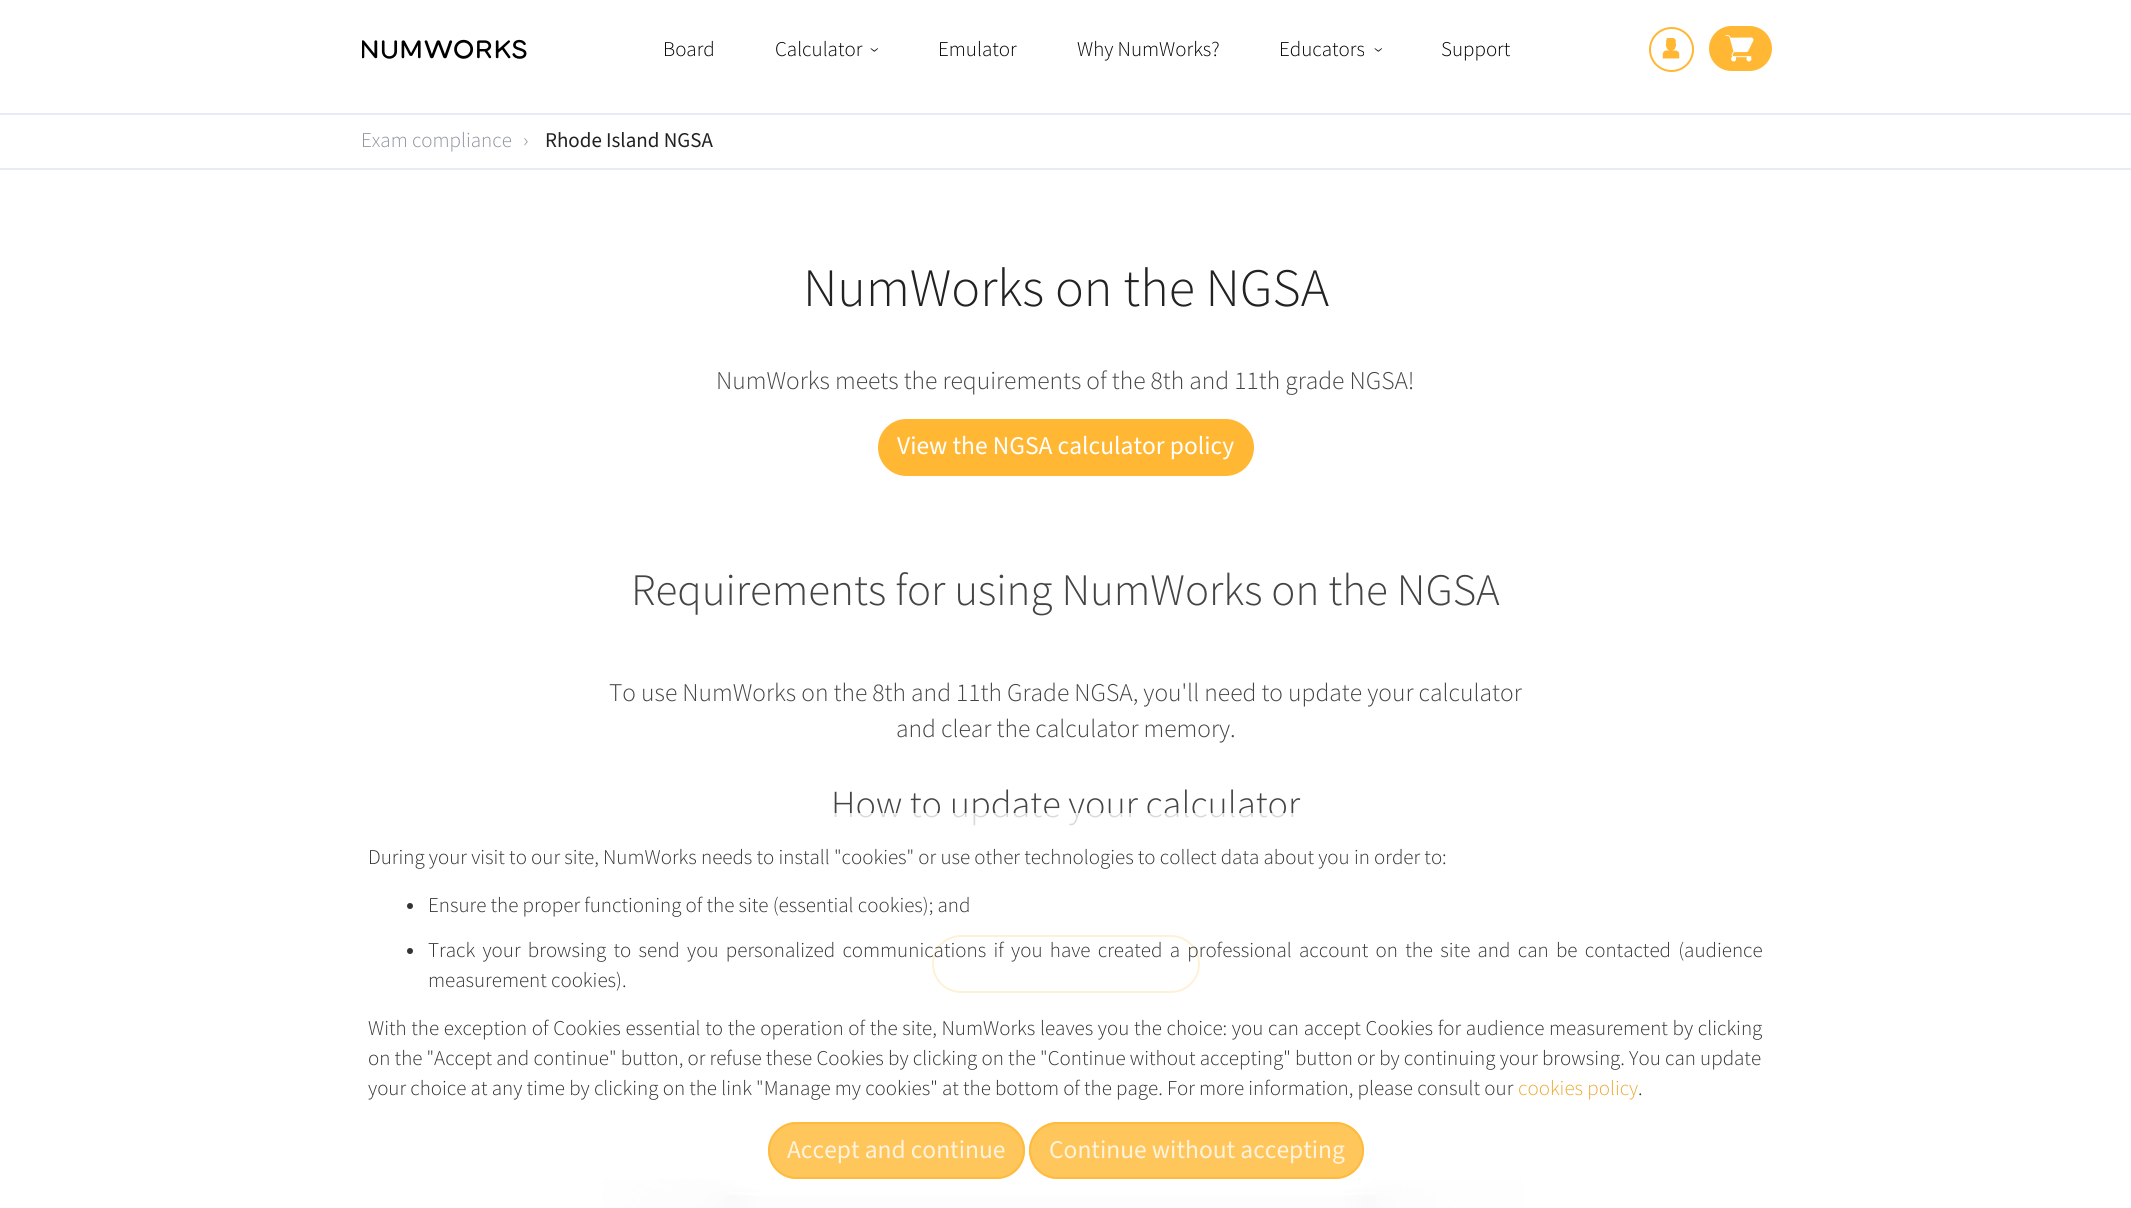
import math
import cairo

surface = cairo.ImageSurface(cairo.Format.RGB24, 2131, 1208)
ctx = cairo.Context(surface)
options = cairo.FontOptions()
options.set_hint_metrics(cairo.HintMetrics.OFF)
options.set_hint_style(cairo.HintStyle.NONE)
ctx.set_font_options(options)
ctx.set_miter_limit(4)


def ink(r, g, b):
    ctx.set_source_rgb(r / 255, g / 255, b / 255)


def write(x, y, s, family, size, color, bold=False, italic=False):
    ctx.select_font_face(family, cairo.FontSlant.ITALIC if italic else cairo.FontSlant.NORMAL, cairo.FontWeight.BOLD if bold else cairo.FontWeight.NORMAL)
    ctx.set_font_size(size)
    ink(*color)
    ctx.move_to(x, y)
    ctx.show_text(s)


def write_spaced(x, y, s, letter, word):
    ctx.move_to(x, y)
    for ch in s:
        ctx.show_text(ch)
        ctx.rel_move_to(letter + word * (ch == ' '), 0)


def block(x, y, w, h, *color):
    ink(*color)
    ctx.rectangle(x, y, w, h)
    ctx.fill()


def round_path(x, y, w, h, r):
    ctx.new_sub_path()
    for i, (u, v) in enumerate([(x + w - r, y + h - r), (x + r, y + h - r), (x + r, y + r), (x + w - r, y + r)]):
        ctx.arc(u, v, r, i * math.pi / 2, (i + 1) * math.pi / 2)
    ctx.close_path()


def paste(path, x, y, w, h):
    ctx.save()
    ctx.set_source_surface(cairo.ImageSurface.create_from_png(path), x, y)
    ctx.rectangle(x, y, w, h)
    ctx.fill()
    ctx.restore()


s1 = dict(family="Source Sans Pro Light", size=21, color=(0, 0, 0))
s2 = dict(family="Source Sans Pro Light", size=21, color=(140, 146, 158))
s3 = dict(family="Source Sans 3", size=21, color=(34, 34, 34))
s4 = dict(family="Source Sans Pro Light", size=54, color=(34, 34, 34))
s5 = dict(family="Source Sans Pro Light", size=25.5, color=(68, 68, 68))
s6 = dict(family="Source Sans 3", size=25.5, color=(255, 255, 255))
s7 = dict(family="Source Sans Pro Light", size=45, color=(68, 68, 68))
s8 = dict(family="Source Sans Pro Light", size=38.25, color=(68, 68, 68))
s9 = dict(family="Source Sans Pro Light", size=21, color=(50, 50, 50))
s10 = dict(family="Source Sans Pro Light", size=21, color=(236, 170, 51))
s11 = dict(family="Source Sans 3", size=25.5, color=(255, 243, 222))

ink(255, 255, 255)
ctx.paint()
paste("pic1.png", 362, 39, 165, 20)
write(663, 56, "Board", **s1)
write(775, 56, "Calculator", **s1)
ctx.save()
ctx.translate(869, 47)
ctx.rotate(90 * math.pi / 180)
write(0, 0, "›", **s1)
ctx.restore()
write(938, 56, "Emulator", **s1)
write(1077, 56, "Why NumWorks?", **s1)
write(1279, 56, "Educators", **s1)
ctx.save()
ctx.translate(1373, 47)
ctx.rotate(90 * math.pi / 180)
write(0, 0, "›", **s1)
ctx.restore()
write(1441, 56, "Support", **s1)
ctx.new_path()
ctx.arc(1671.5, 49.5, 21.5, 0, 2 * math.pi)
ink(255, 183, 52)
ctx.stroke()
paste("pic2.png", 1662, 38, 18, 21)
round_path(1710, 27, 61, 43, 21.5)
ctx.fill_preserve()
ctx.stroke()
paste("pic3.png", 1725, 35, 29, 27)
block(0, 113, 2131, 2, 231, 235, 245)
block(0, 168, 2131, 2, 231, 235, 245)
write(361, 147, "Exam compliance", **s2)
write(523, 147, "›", **s2)
write(545, 147, "Rhode Island NGSA", **s3)
write(803, 306, "NumWorks on the NGSA", **s4)
write(716, 389, "NumWorks meets the requirements of the 8th and 11th grade NGSA!", **s5)
ink(255, 183, 52)
round_path(879, 420, 374, 55, 27.5)
ctx.fill_preserve()
ctx.stroke()
write(897, 454, "View the NGSA calculator policy", **s6)
write(631, 605, "Requirements for using NumWorks on the NGSA", **s7)
write(609, 701, "To use NumWorks on the 8th and 11th Grade NGSA, you'll need to update your calculator", **s5)
write(896, 737, "and clear the calculator memory.", **s5)
write(831, 817, "How to update your calculator", **s8)
round_path(933, 936, 266, 56, 28)
ink(255, 183, 52)
ctx.stroke()
paste("pic4.png", 603, 1179, 920, 29)
ctx.set_source_rgba(1, 1, 1, 0.8)
ctx.rectangle(603, 813, 920, 395)
ctx.fill()
write(368, 864, "During your visit to our site, NumWorks needs to install \"cookies\" or use other technologies to collect data about you in order to:", **s9)
ink(51, 51, 51)
ctx.new_path()
ctx.arc(410, 906, 3, 0, 2 * math.pi)
ctx.fill()
write(428, 912, "Ensure the proper functioning of the site (essential cookies); and", **s9)
ink(51, 51, 51)
ctx.new_path()
ctx.arc(410, 951, 3, 0, 2 * math.pi)
ctx.fill()
ink(50, 50, 50)
write_spaced(428, 957, "Track your browsing to send you personalized communications if you have created a professional account on the site and can be contacted (audience", 0, 3.1)
write(428, 987, "measurement cookies).", **s9)
write_spaced(368, 1035, "With the exception of Cookies essential to the operation of the site, NumWorks leaves you the choice: you can accept Cookies for audience measurement by clicking", 0, 0.5)
write(368, 1065, "on the \"Accept and continue\" button, or refuse these Cookies by clicking on the \"Continue without accepting\" button or by continuing your browsing. You can update", **s9)
write(368, 1095, "your choice at any time by clicking on the link \"Manage my cookies\" at the bottom of the page. For more information, please consult our", **s9)
write(1518, 1095, "cookies policy", **s10)
write(1638, 1095, ".", **s9)
ctx.set_source_rgba(1, 0.718, 0.204, 0.8)
round_path(768, 1122, 257, 57, 28.5)
ctx.fill()
round_path(769, 1123, 255, 55, 27.5)
ctx.stroke()
write(787, 1158, "Accept and continue", **s11)
ctx.set_source_rgba(1, 0.718, 0.204, 0.8)
round_path(1029, 1122, 335, 57, 28.5)
ctx.fill()
round_path(1030, 1123, 333, 55, 27.5)
ctx.stroke()
write(1049, 1158, "Continue without accepting", **s11)
surface.write_to_png("screenshot.png")
